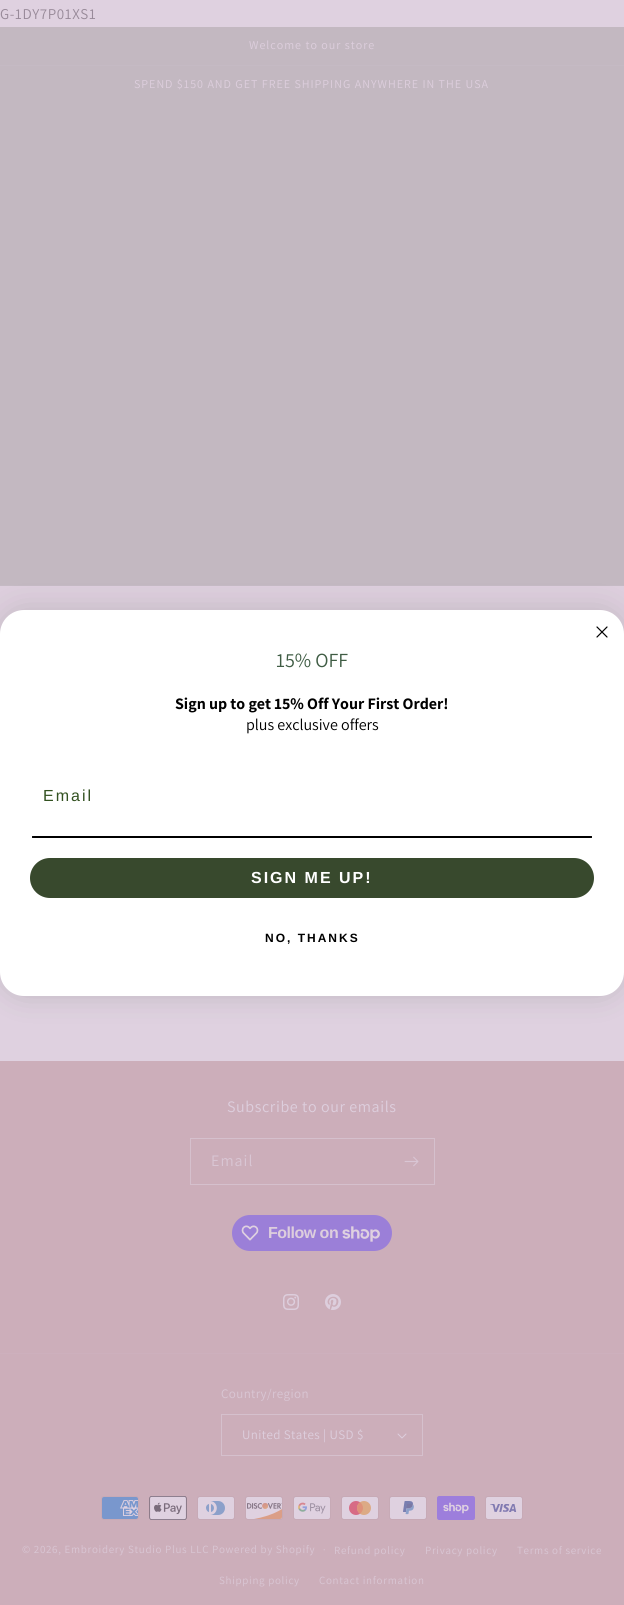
import math
import cairo

surface = cairo.ImageSurface(cairo.Format.RGB24, 624, 1605)
ctx = cairo.Context(surface)
options = cairo.FontOptions()
options.set_hint_metrics(cairo.HintMetrics.OFF)
options.set_hint_style(cairo.HintStyle.NONE)
ctx.set_font_options(options)
ctx.set_miter_limit(4)


def ink(r, g, b):
    ctx.set_source_rgb(r / 255, g / 255, b / 255)


def write(x, y, s, family, size, color, bold=False, italic=False):
    ctx.select_font_face(family, cairo.FontSlant.ITALIC if italic else cairo.FontSlant.NORMAL, cairo.FontWeight.BOLD if bold else cairo.FontWeight.NORMAL)
    ctx.set_font_size(size)
    ink(*color)
    ctx.move_to(x, y)
    ctx.show_text(s)


def write_spaced(x, y, s, letter, word):
    ctx.move_to(x, y)
    for ch in s:
        ctx.show_text(ch)
        ctx.rel_move_to(letter + word * (ch == ' '), 0)


def block(x, y, w, h, *color):
    ink(*color)
    ctx.rectangle(x, y, w, h)
    ctx.fill()


def round_path(x, y, w, h, r):
    ctx.new_sub_path()
    for i, (u, v) in enumerate([(x + w - r, y + h - r), (x + r, y + h - r), (x + r, y + r), (x + w - r, y + r)]):
        ctx.arc(u, v, r, i * math.pi / 2, (i + 1) * math.pi / 2)
    ctx.close_path()


def blur_box(x, y, w, h, r, blur, alpha):
    ctx.push_group_with_content(cairo.Content.ALPHA)
    ctx.set_operator(cairo.Operator.SOURCE)
    for i in range(15, -16, -2):
        e = blur * i / 6
        if min(w, h) + 2 * e > 0:
            ctx.set_source_rgba(0, 0, 0, alpha * math.erfc((i - 1) / 8.5) / 2)
            round_path(x - e, y - e, w + 2 * e, h + 2 * e, max(0, min(r + e + blur * .6, min(w, h) / 2 + e)))
            ctx.fill()
    ctx.mask(ctx.pop_group())


def paste(path, x, y, w, h):
    ctx.save()
    ctx.set_source_surface(cairo.ImageSurface.create_from_png(path), x, y)
    ctx.rectangle(x, y, w, h)
    ctx.fill()
    ctx.restore()


s1 = dict(family="Assistant", size=20, color=(63, 92, 68))
s2 = dict(family="Assistant", size=16, color=(0, 0, 0), bold=True)
s3 = dict(family="Assistant", size=16, color=(0, 0, 0))

ink(223, 209, 224)
ctx.paint()
ctx.select_font_face("Assistant")
ctx.set_font_size(15)
ink(152, 138, 153)
write_spaced(0, 19, "G-1DY7P01XS1", 0.6, 0)
block(0, 27, 624, 38, 195, 184, 193)
block(0, 65, 624, 1, 197, 186, 196)
ctx.set_font_size(12)
ink(221, 206, 221)
write_spaced(249, 49, "Welcome to our store", 1, 0)
block(0, 66, 624, 519, 195, 184, 193)
block(0, 585, 624, 1, 197, 186, 196)
ink(221, 206, 221)
write_spaced(134, 88, "SPEND $150 AND GET FREE SHIPPING ANYWHERE IN THE USA", 1, 0)
block(0, 586, 624, 48, 221, 206, 221)
ink(26, 49, 26)
blur_box(0, 610, 624, 386, 24, 15, 0.15)
ink(255, 255, 255)
round_path(0, 610, 624, 386, 24)
ctx.fill()
ctx.new_path()
ctx.move_to(597, 627)
ctx.line_to(607, 637)
ctx.move_to(597, 637)
ctx.line_to(607, 627)
ctx.close_path()
ink(0, 0, 0)
ctx.set_line_width(1.2)
ctx.set_line_cap(cairo.LineCap.ROUND)
ctx.set_line_join(cairo.LineJoin.ROUND)
ctx.stroke()
write(276, 667, "15% OFF", **s1)
write(175, 709, "Sign up to get 15% Off Your First Order!", **s2)
write(246, 730, "plus exclusive offers", **s3)
ctx.select_font_face("Liberation Sans")
ink(50, 81, 32)
write_spaced(43, 801, "Email", 2, 0)
paste("pic1.png", 32, 836, 560, 2)
ink(56, 73, 45)
round_path(30, 858, 564, 40, 20)
ctx.fill()
ctx.select_font_face("Liberation Sans", cairo.FontSlant.NORMAL, cairo.FontWeight.BOLD)
ink(255, 255, 255)
write_spaced(251, 883, "SIGN ME UP!", 2, 0)
ctx.set_font_size(12)
ink(0, 0, 0)
write_spaced(265, 942, "NO, THANKS", 2, 0)
block(0, 1061, 624, 544, 204, 174, 186)
ctx.select_font_face("Assistant")
ctx.set_font_size(16)
ink(221, 206, 221)
write_spaced(227, 1112, "Subscribe to our emails", 0.6, 0)
ctx.rectangle(190.5, 1138.5, 244, 46)
ink(213, 192, 205)
ctx.set_line_width(1)
ctx.set_line_cap(cairo.LineCap.BUTT)
ctx.set_line_join(cairo.LineJoin.MITER)
ctx.stroke()
ink(217, 198, 212)
write_spaced(211, 1166, "Email", 1, 0)
paste("pic2.png", 404, 1156, 15, 11)
ink(155, 127, 216)
round_path(232, 1215, 160, 36, 18)
ctx.fill()
paste("pic3.png", 241, 1225, 18, 16)
ctx.select_font_face("Liberation Sans", cairo.FontSlant.NORMAL, cairo.FontWeight.BOLD)
ink(221, 206, 221)
write_spaced(268, 1238, "Follow on", -0.5, 0)
paste("pic4.png", 342, 1226, 38, 16)
paste("pic5.png", 283, 1294, 16, 16)
paste("pic6.png", 325, 1294, 16, 16)
block(0, 1353, 624, 1, 205, 176, 189)
ctx.select_font_face("Assistant")
ctx.set_font_size(13)
ink(217, 198, 212)
write_spaced(221, 1398, "Country/region", 0.4, 0)
paste("pic7.png", 397, 1433, 10, 6)
ctx.rectangle(221.5, 1414.5, 201, 41)
ink(213, 192, 205)
ctx.stroke()
ink(221, 206, 221)
write_spaced(242, 1439, "United States | USD $", 0.4, 0)
paste("pic8.png", 101, 1496, 38, 24)
paste("pic9.png", 149, 1496, 38, 24)
paste("pic10.png", 197, 1496, 38, 24)
paste("pic11.png", 245, 1496, 38, 24)
paste("pic12.png", 293, 1496, 38, 24)
paste("pic13.png", 341, 1496, 38, 24)
paste("pic14.png", 389, 1496, 38, 24)
paste("pic15.png", 437, 1496, 38, 24)
paste("pic16.png", 485, 1496, 38, 24)
ctx.set_font_size(11)
ink(217, 198, 212)
write_spaced(22, 1553, "© 2026, Embroidery Studio Plus LLC Powered by Shopify", 0.7, 0)
ctx.set_font_size(10)
write_spaced(323, 1553, "·", 0.7, 0)
ctx.set_font_size(11)
write_spaced(334, 1554, "Refund policy", 0.7, 0)
write_spaced(425, 1554, "Privacy policy", 0.7, 0)
write_spaced(517, 1554, "Terms of service", 0.7, 0)
write_spaced(219, 1584, "Shipping policy", 0.7, 0)
write_spaced(319, 1584, "Contact information", 0.7, 0)
surface.write_to_png("screenshot.png")
